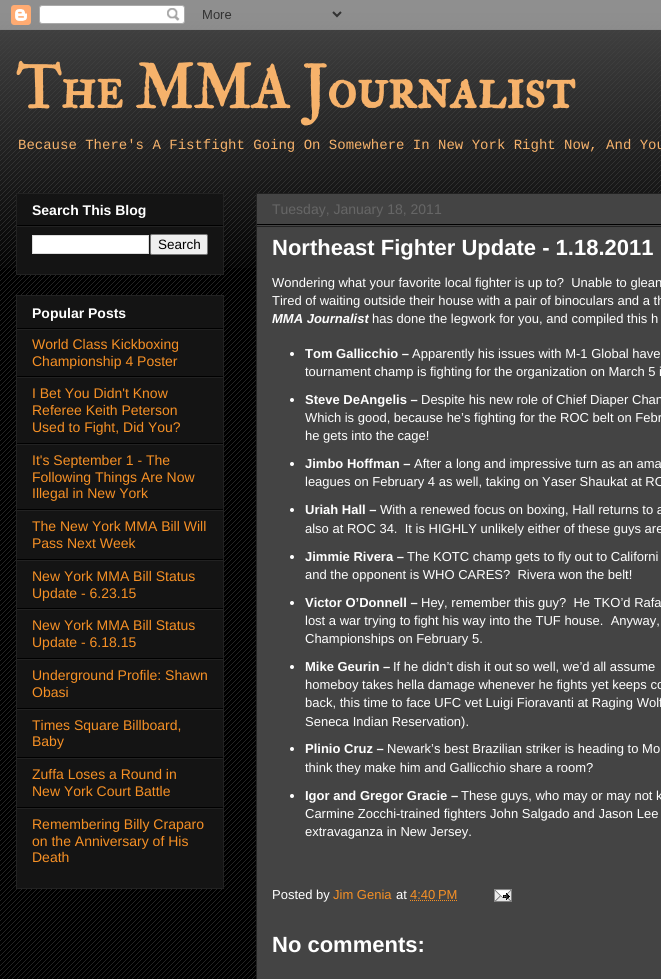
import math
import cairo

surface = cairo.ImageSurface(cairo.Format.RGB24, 661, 979)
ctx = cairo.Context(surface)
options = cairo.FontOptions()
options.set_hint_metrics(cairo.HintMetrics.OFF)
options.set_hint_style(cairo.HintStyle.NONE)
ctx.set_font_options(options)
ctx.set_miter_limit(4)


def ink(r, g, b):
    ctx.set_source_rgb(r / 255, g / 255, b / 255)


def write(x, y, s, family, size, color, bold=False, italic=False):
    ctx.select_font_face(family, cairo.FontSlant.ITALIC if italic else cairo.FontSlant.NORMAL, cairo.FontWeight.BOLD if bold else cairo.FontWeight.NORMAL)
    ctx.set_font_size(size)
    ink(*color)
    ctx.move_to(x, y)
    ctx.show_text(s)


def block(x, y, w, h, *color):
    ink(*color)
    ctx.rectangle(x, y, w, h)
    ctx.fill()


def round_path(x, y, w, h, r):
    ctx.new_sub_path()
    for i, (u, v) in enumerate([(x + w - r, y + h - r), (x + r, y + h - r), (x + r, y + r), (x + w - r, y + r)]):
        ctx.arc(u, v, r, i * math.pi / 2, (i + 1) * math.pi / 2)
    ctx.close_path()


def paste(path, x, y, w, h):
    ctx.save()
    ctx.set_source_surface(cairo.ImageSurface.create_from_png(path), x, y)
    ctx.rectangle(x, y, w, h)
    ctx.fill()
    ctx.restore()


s1 = dict(family="IM FELL Double Pica SC", size=60, color=(246, 178, 107), bold=True)
s2 = dict(family="Liberation Mono", size=14, color=(246, 178, 107))
s3 = dict(family="Liberation Sans", size=14, color=(255, 255, 255), bold=True)
s4 = dict(family="Liberation Sans", size=13.5, color=(0, 0, 0))
s5 = dict(family="Liberation Sans", size=14, color=(246, 144, 37))
s6 = dict(family="Liberation Sans", size=14, color=(102, 102, 102))
s7 = dict(family="Liberation Sans", size=22, color=(255, 255, 255), bold=True)
s8 = dict(family="Liberation Sans", size=13, color=(255, 255, 255))
s9 = dict(family="Liberation Sans", size=13, color=(255, 255, 255), bold=True, italic=True)
s10 = dict(family="Liberation Sans", size=13, color=(255, 255, 255), bold=True)
s11 = dict(family="Liberation Sans", size=13, color=(246, 144, 37))

ink(0, 0, 0)
ctx.paint()
paste("pic1.png", 0, 13, 661, 966)
paste("pic2.png", 0, 0, 661, 268)
paste("pic3.png", 0, 0, 661, 30)
write(16, 108, "The MMA Journalist", **s1)
write(18, 149, "Because There's A Fistfight Going On Somewhere In New York Right Now, And You", **s2)
ink(20, 20, 20)
ctx.rectangle(16.5, 193.5, 207, 81)
ctx.fill_preserve()
ink(34, 34, 34)
ctx.set_line_width(1)
ctx.stroke()
block(17, 225, 206, 1, 0, 0, 0)
write(32, 215, "Search This Blog", **s3)
block(17, 226, 206, 1, 34, 34, 34)
ink(255, 255, 255)
ctx.rectangle(32.5, 235.5, 116, 18)
ctx.fill_preserve()
ink(221, 221, 221)
ctx.stroke()
ink(239, 239, 239)
round_path(150.5, 234.5, 57, 20, 1.5)
ctx.fill_preserve()
ink(118, 118, 118)
ctx.stroke()
write(158, 249, "Search", **s4)
ink(20, 20, 20)
ctx.rectangle(16.5, 295.5, 207, 593)
ctx.fill_preserve()
ink(34, 34, 34)
ctx.stroke()
block(17, 328, 206, 1, 0, 0, 0)
write(32, 318, "Popular Posts", **s3)
block(17, 329, 206, 1, 34, 34, 34)
block(17, 376, 206, 1, 0, 0, 0)
write(32, 349, "World Class Kickboxing", **s5)
write(32, 366, "Championship 4 Poster", **s5)
block(17, 377, 206, 1, 34, 34, 34)
block(17, 443, 206, 1, 0, 0, 0)
write(32, 398, "I Bet You Didn't Know", **s5)
write(32, 415, "Referee Keith Peterson", **s5)
write(32, 432, "Used to Fight, Did You?", **s5)
block(17, 444, 206, 1, 34, 34, 34)
block(17, 509, 206, 1, 0, 0, 0)
write(32, 465, "It's September 1 - The", **s5)
write(32, 482, "Following Things Are Now", **s5)
write(32, 498, "Illegal in New York", **s5)
block(17, 510, 206, 1, 34, 34, 34)
block(17, 559, 206, 1, 0, 0, 0)
write(32, 531, "The New York MMA Bill Will", **s5)
write(32, 548, "Pass Next Week", **s5)
block(17, 560, 206, 1, 34, 34, 34)
block(17, 608, 206, 1, 0, 0, 0)
write(32, 581, "New York MMA Bill Status", **s5)
write(32, 598, "Update - 6.23.15", **s5)
block(17, 609, 206, 1, 34, 34, 34)
block(17, 658, 206, 1, 0, 0, 0)
write(32, 630, "New York MMA Bill Status", **s5)
write(32, 647, "Update - 6.18.15", **s5)
block(17, 659, 206, 1, 34, 34, 34)
block(17, 708, 206, 1, 0, 0, 0)
write(32, 680, "Underground Profile: Shawn", **s5)
write(32, 697, "Obasi", **s5)
block(17, 709, 206, 1, 34, 34, 34)
block(17, 757, 206, 1, 0, 0, 0)
write(32, 730, "Times Square Billboard,", **s5)
write(32, 746, "Baby", **s5)
block(17, 758, 206, 1, 34, 34, 34)
block(17, 807, 206, 1, 0, 0, 0)
write(32, 779, "Zuffa Loses a Round in", **s5)
write(32, 796, "New York Court Battle", **s5)
block(17, 808, 206, 1, 34, 34, 34)
write(32, 829, "Remembering Billy Craparo", **s5)
write(32, 846, "on the Anniversary of His", **s5)
write(32, 862, "Death", **s5)
ink(68, 68, 68)
ctx.rectangle(256.5, 193.5, 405, 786)
ctx.fill_preserve()
ink(34, 34, 34)
ctx.stroke()
block(257, 224, 404, 1, 0, 0, 0)
write(272, 214, "Tuesday, January 18, 2011", **s6)
block(257, 226, 404, 1, 34, 34, 34)
write(272, 255, "Northeast Fighter Update - 1.18.2011", **s7)
write(272, 287, "Wondering what your favorite local fighter is up to?  Unable to glean", **s8)
write(272, 305, "Tired of waiting outside their house with a pair of binoculars and a th", **s8)
write(272, 323, "MMA Journalist", **s9)
write(372, 323, "has done the legwork for you, and compiled this h", **s8)
ctx.new_path()
ctx.arc(292, 354, 2, 0, 2 * math.pi)
ctx.fill()
write(305, 358, "Tom Gallicchio –", **s10)
write(412, 358, "Apparently his issues with M-1 Global have", **s8)
write(305, 376, "tournament champ is fighting for the organization on March 5 i", **s8)
ctx.new_path()
ctx.arc(292, 400, 2, 0, 2 * math.pi)
ctx.fill()
write(305, 404, "Steve DeAngelis –", **s10)
write(421, 404, "Despite his new role of Chief Diaper Chan", **s8)
write(305, 422, "Which is good, because he’s fighting for the ROC belt on Febr", **s8)
write(305, 440, "he gets into the cage!", **s8)
ctx.new_path()
ctx.arc(292, 464, 2, 0, 2 * math.pi)
ctx.fill()
write(305, 468, "Jimbo Hoffman –", **s10)
write(414, 468, "After a long and impressive turn as an ama", **s8)
write(305, 486, "leagues on February 4 as well, taking on Yaser Shaukat at RO", **s8)
ctx.new_path()
ctx.arc(292, 510, 2, 0, 2 * math.pi)
ctx.fill()
write(305, 514, "Uriah Hall –", **s10)
write(380, 514, "With a renewed focus on boxing, Hall returns to a", **s8)
write(305, 533, "also at ROC 34.  It is HIGHLY unlikely either of these guys are", **s8)
ctx.new_path()
ctx.arc(292, 557, 2, 0, 2 * math.pi)
ctx.fill()
write(305, 561, "Jimmie Rivera –", **s10)
write(407, 561, "The KOTC champ gets to fly out to Californi", **s8)
write(305, 579, "and the opponent is WHO CARES?  Rivera won the belt!", **s8)
ctx.new_path()
ctx.arc(292, 603, 2, 0, 2 * math.pi)
ctx.fill()
write(305, 607, "Victor O’Donnell –", **s10)
write(421, 607, "Hey, remember this guy?  He TKO’d Rafa", **s8)
write(305, 625, "lost a war trying to fight his way into the TUF house.  Anyway,", **s8)
write(305, 643, "Championships on February 5.", **s8)
ctx.new_path()
ctx.arc(292, 667, 2, 0, 2 * math.pi)
ctx.fill()
write(305, 671, "Mike Geurin –", **s10)
write(393, 671, "If he didn’t dish it out so well, we’d all assume", **s8)
write(305, 689, "homeboy takes hella damage whenever he fights yet keeps co", **s8)
write(305, 707, "back, this time to face UFC vet Luigi Fioravanti at Raging Wolf", **s8)
write(305, 726, "Seneca Indian Reservation).", **s8)
ctx.new_path()
ctx.arc(292, 749, 2, 0, 2 * math.pi)
ctx.fill()
write(305, 753, "Plinio Cruz –", **s10)
write(387, 753, "Newark’s best Brazilian striker is heading to Mo", **s8)
write(305, 772, "think they make him and Gallicchio share a room?", **s8)
ctx.new_path()
ctx.arc(292, 796, 2, 0, 2 * math.pi)
ctx.fill()
write(305, 800, "Igor and Gregor Gracie –", **s10)
write(461, 800, "These guys, who may or may not k", **s8)
write(305, 818, "Carmine Zocchi-trained fighters John Salgado and Jason Lee", **s8)
write(305, 836, "extravaganza in New Jersey.", **s8)
write(272, 899, "Posted by", **s8)
write(333, 899, "Jim Genia", **s11)
write(396, 899, "at", **s8)
write(410, 899, "4:40 PM", **s11)
ctx.new_path()
ctx.move_to(410, 900.5)
ctx.line_to(457.5, 900.5)
ctx.set_dash([1, 1])
ctx.stroke()
paste("pic4.png", 494, 889, 18, 13)
write(272, 952, "No comments:", **s7)
surface.write_to_png("screenshot.png")
